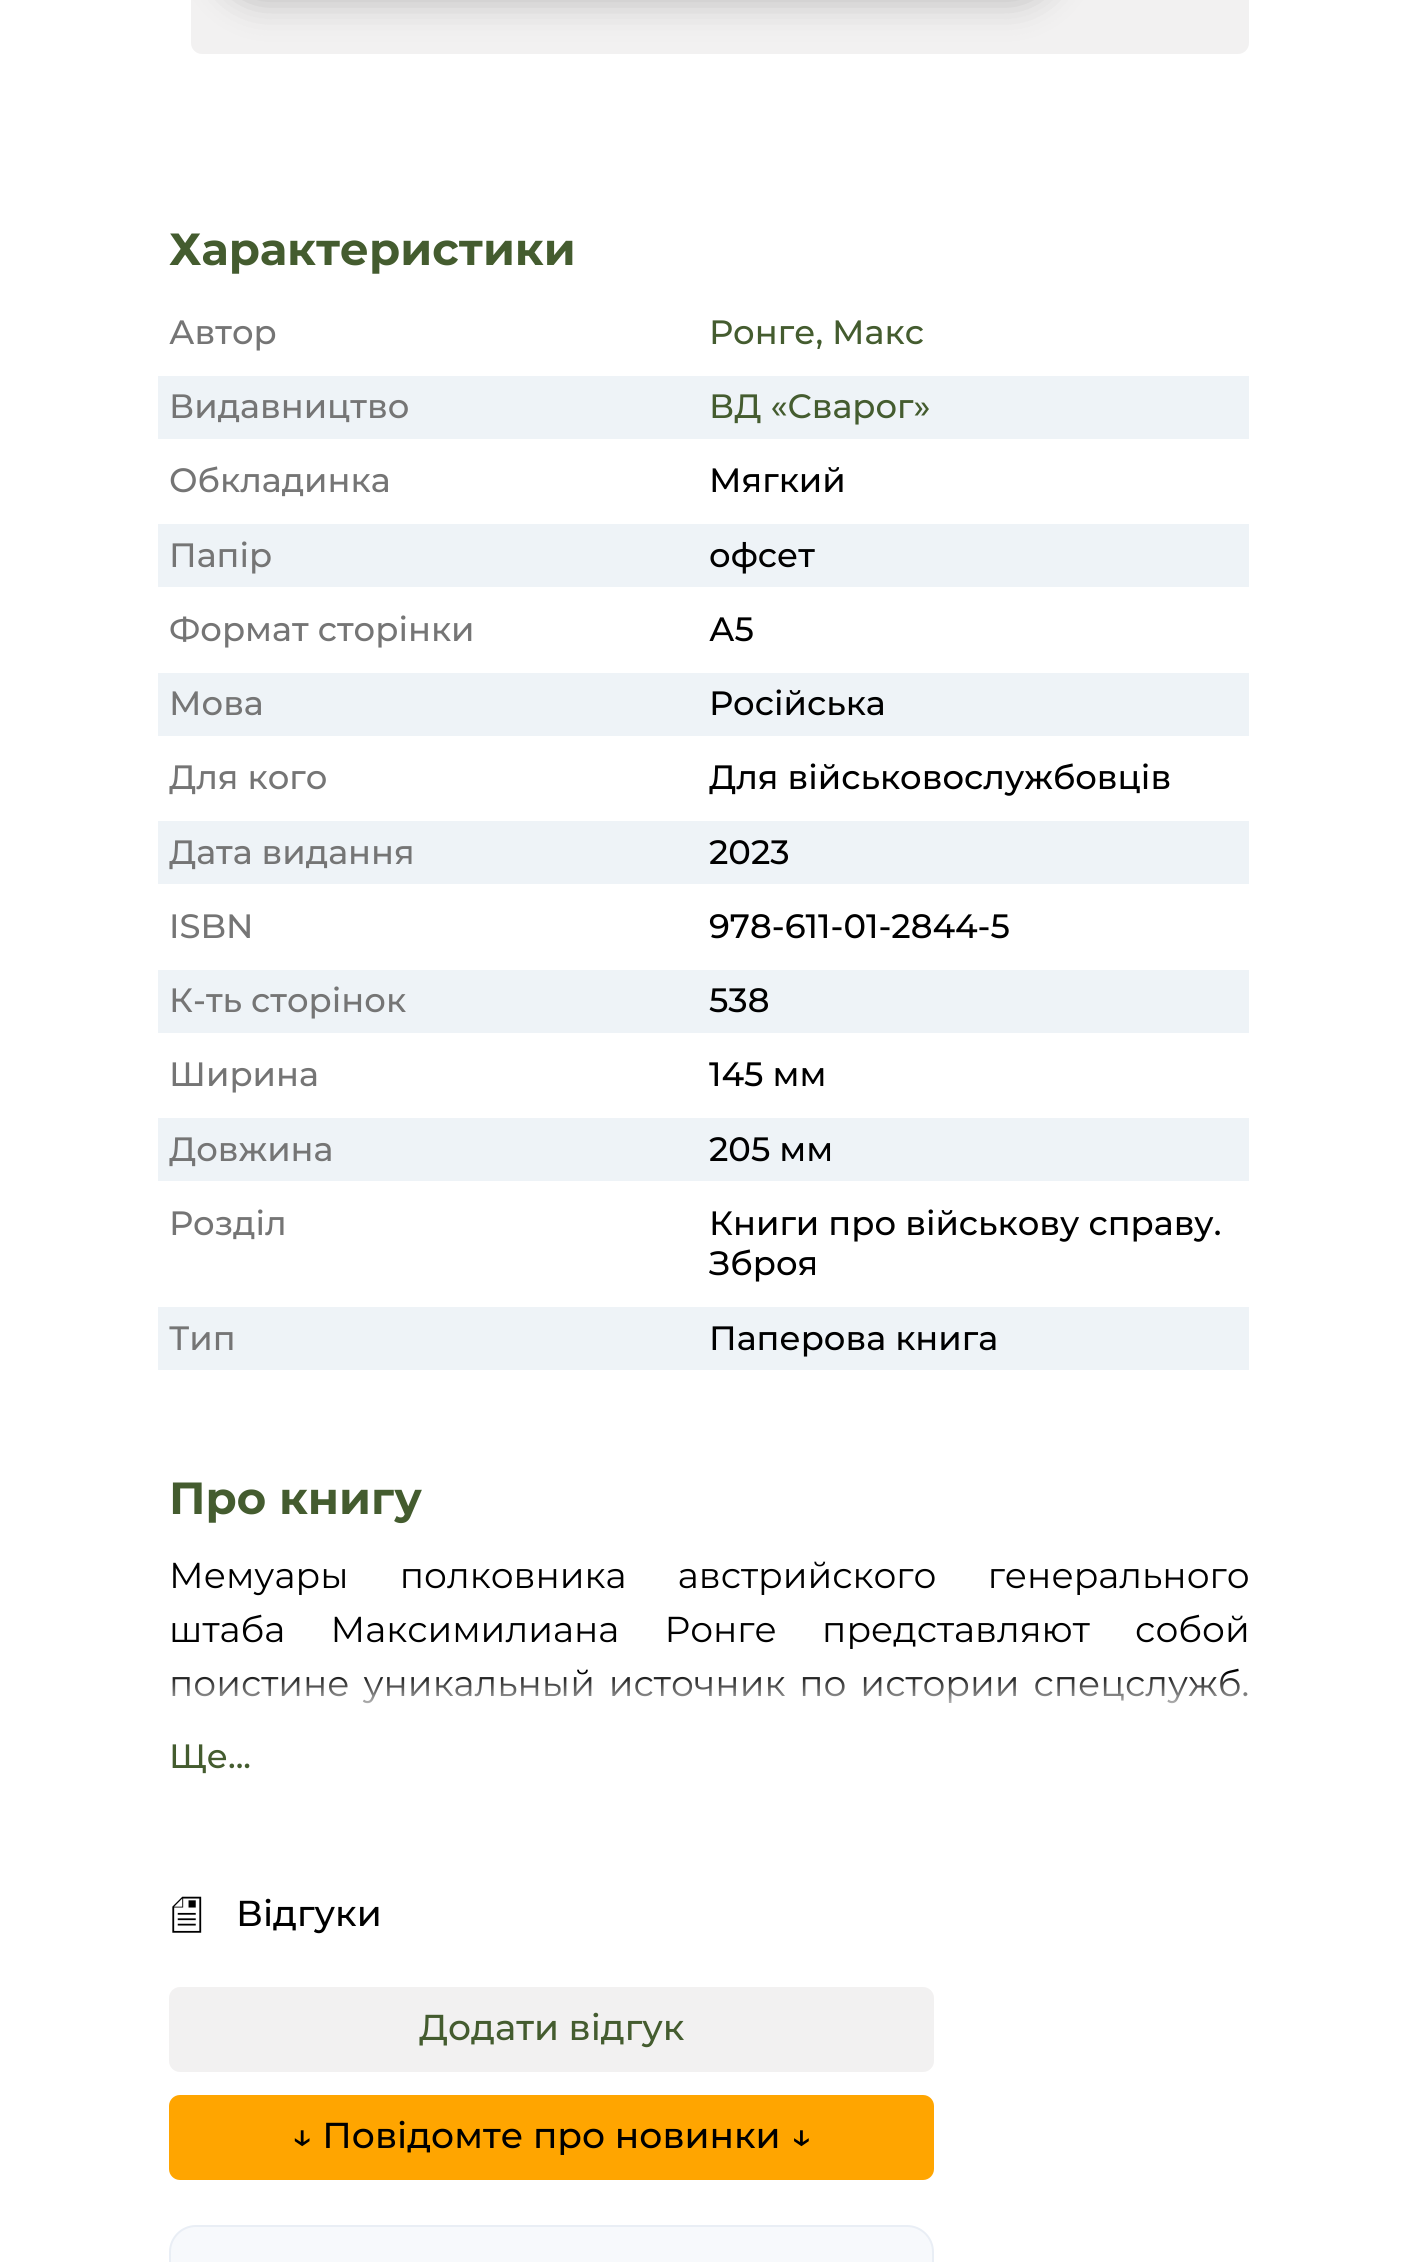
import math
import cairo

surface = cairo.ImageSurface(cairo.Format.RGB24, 1416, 2262)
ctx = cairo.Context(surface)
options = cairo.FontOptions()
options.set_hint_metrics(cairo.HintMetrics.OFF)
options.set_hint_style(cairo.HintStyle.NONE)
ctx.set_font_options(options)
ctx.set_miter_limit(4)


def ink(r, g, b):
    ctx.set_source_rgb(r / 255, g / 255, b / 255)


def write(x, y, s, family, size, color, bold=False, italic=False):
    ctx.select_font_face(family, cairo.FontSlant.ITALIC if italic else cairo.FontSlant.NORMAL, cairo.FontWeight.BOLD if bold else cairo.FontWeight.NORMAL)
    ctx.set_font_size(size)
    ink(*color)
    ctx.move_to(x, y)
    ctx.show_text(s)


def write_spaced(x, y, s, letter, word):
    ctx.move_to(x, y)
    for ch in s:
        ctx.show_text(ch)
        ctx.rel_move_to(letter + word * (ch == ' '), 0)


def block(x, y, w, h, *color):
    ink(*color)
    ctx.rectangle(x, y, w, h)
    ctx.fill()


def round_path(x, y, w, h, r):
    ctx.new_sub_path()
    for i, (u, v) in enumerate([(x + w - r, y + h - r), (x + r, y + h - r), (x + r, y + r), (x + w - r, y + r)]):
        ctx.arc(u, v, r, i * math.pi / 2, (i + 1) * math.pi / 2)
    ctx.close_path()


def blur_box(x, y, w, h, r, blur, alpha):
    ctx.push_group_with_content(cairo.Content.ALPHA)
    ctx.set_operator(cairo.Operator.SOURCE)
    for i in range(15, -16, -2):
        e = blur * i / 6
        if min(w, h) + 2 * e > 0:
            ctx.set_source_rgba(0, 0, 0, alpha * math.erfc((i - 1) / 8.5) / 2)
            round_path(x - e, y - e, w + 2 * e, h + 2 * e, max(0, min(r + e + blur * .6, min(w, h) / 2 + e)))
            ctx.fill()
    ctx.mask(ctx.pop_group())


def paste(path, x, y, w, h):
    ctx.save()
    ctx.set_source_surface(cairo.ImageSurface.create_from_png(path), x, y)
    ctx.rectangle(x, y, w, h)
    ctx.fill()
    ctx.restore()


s1 = dict(family="Montserrat", size=45, color=(68, 92, 47), bold=True)
s2 = dict(family="Montserrat Medium", size=33.75, color=(117, 117, 117))
s3 = dict(family="Montserrat Medium", size=33.75, color=(68, 92, 47))
s4 = dict(family="Montserrat Medium", size=33.75, color=(0, 0, 0))
s5 = dict(family="Montserrat Medium", size=36, color=(0, 0, 0))
s6 = dict(family="Montserrat Medium", size=36, color=(68, 92, 47))

ink(255, 255, 255)
ctx.paint()
ink(242, 241, 241)
round_path(191, -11, 1058, 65, 11)
ctx.fill()
ink(0, 0, 0)
blur_box(214, -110, 848, 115, 58.5, 17, 0.2)
write(169, 265, "Характеристики", **s1)
write(169, 344, "Автор", **s2)
write(709, 344, "Ронге, Макс", **s3)
ink(238, 243, 247)
ctx.new_path()
ctx.move_to(158, 376)
ctx.line_to(158, 439)
ctx.line_to(1238, 439)
ctx.line_to(169, 439)
ctx.line_to(169, 376)
ctx.close_path()
ctx.fill()
block(169, 376, 1080, 63, 238, 243, 247)
write(169, 418, "Видавництво", **s2)
write(709, 418, "ВД «Сварог»", **s3)
write(169, 492, "Обкладинка", **s2)
write(709, 492, "Мягкий", **s4)
ink(238, 243, 247)
ctx.new_path()
ctx.move_to(158, 524)
ctx.line_to(158, 587)
ctx.line_to(169, 587)
ctx.line_to(169, 524)
ctx.line_to(1238, 524)
ctx.close_path()
ctx.fill()
block(169, 524, 1080, 63, 238, 243, 247)
write(169, 567, "Папір", **s2)
write(709, 567, "офсет", **s4)
write(169, 641, "Формат сторінки", **s2)
write(709, 641, "А5", **s4)
ink(238, 243, 247)
ctx.new_path()
ctx.move_to(158, 673)
ctx.line_to(158, 736)
ctx.line_to(1238, 736)
ctx.line_to(169, 736)
ctx.line_to(169, 673)
ctx.close_path()
ctx.fill()
block(169, 673, 1080, 63, 238, 243, 247)
write(169, 715, "Мова", **s2)
write(709, 715, "Російська", **s4)
write(169, 789, "Для кого", **s2)
write(709, 789, "Для військовослужбовців", **s4)
ink(238, 243, 247)
ctx.new_path()
ctx.move_to(158, 821)
ctx.line_to(158, 884)
ctx.line_to(169, 884)
ctx.line_to(169, 821)
ctx.line_to(1238, 821)
ctx.close_path()
ctx.fill()
block(169, 821, 1080, 63, 238, 243, 247)
write(169, 864, "Дата видання", **s2)
write(709, 864, "2023", **s4)
write(169, 938, "ISBN", **s2)
write(709, 938, "978-611-01-2844-5", **s4)
ink(238, 243, 247)
ctx.new_path()
ctx.move_to(158, 970)
ctx.line_to(158, 1033)
ctx.line_to(1238, 1033)
ctx.line_to(169, 1033)
ctx.line_to(169, 970)
ctx.close_path()
ctx.fill()
block(169, 970, 1080, 63, 238, 243, 247)
write(169, 1012, "К-ть сторінок", **s2)
write(709, 1012, "538", **s4)
write(169, 1086, "Ширина", **s2)
write(709, 1086, "145 мм", **s4)
ink(238, 243, 247)
ctx.new_path()
ctx.move_to(158, 1118)
ctx.line_to(158, 1181)
ctx.line_to(169, 1181)
ctx.line_to(169, 1118)
ctx.line_to(1238, 1118)
ctx.close_path()
ctx.fill()
block(169, 1118, 1080, 63, 238, 243, 247)
write(169, 1161, "Довжина", **s2)
write(709, 1161, "205 мм", **s4)
write(169, 1235, "Розділ", **s2)
write(709, 1235, "Книги про військову справу.", **s4)
write(709, 1275, "Зброя", **s4)
ink(238, 243, 247)
ctx.new_path()
ctx.move_to(158, 1307)
ctx.line_to(158, 1370)
ctx.line_to(169, 1370)
ctx.line_to(169, 1307)
ctx.line_to(1238, 1307)
ctx.close_path()
ctx.fill()
block(169, 1307, 1080, 63, 238, 243, 247)
write(169, 1350, "Тип", **s2)
write(709, 1350, "Паперова книга", **s4)
write(169, 1514, "Про книгу", **s1)
ctx.select_font_face("Montserrat")
ctx.set_font_size(36)
ink(0, 0, 0)
write_spaced(169, 1588, "Мемуары полковника австрийского генерального", 0, 42)
write_spaced(169, 1642, "штаба Максимилиана Ронге представляют собой", 0, 36)
write_spaced(169, 1696, "поистине уникальный источник по истории спецслужб.", 0, 4.5)
gradient = cairo.LinearGradient(709, 1672, 709, 1717)
gradient.add_color_stop_rgba(0, 1, 1, 1, 0)
gradient.add_color_stop_rgba(1, 1, 1, 1, 1)
ctx.set_source(gradient)
ctx.rectangle(172, 1673, 1075, 31)
ctx.fill()
write(169, 1768, "Ще...", **s3)
paste("pic1.png", 172, 1896, 30, 37)
write(236, 1926, "Відгуки", **s5)
ink(242, 241, 241)
round_path(170, 1988, 763, 83, 10)
ctx.fill_preserve()
ctx.stroke()
write(419, 2040, "Додати відгук", **s6)
ink(255, 165, 0)
round_path(170, 2096, 763, 83, 10)
ctx.fill_preserve()
ctx.stroke()
write(291, 2148, "↓ Повідомте про новинки ↓", **s5)
ink(247, 249, 252)
round_path(170, 2226, 763, 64, 26)
ctx.fill_preserve()
ink(233, 238, 245)
ctx.stroke()
surface.write_to_png("screenshot.png")
